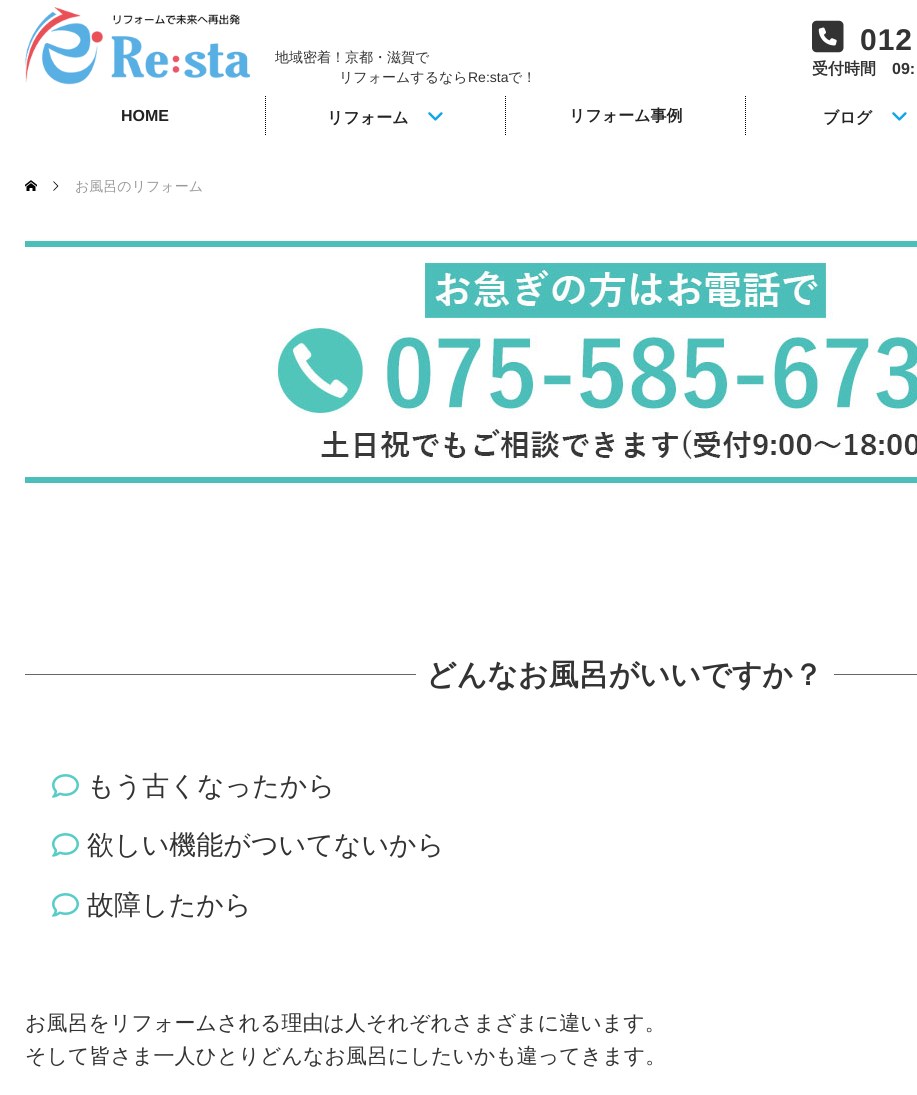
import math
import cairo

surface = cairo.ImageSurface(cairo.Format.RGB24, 917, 1095)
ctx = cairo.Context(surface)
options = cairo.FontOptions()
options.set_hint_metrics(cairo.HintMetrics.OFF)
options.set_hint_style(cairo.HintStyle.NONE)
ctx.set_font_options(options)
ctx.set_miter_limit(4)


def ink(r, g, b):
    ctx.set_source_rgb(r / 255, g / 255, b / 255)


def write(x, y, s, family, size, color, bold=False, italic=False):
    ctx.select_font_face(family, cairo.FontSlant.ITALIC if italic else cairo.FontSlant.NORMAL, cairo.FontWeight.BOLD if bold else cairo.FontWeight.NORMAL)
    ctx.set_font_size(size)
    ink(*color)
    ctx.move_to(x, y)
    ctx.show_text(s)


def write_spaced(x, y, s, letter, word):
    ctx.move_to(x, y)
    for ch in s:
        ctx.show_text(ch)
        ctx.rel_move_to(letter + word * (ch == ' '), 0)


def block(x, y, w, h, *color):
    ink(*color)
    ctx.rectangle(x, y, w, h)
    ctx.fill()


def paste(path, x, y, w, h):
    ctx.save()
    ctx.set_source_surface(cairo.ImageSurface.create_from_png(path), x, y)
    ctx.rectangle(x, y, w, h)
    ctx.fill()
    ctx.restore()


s1 = dict(family="WenQuanYi Zen Hei Medium", size=14, color=(51, 51, 51))
s2 = dict(family="Liberation Sans", size=14, color=(51, 51, 51))
s3 = dict(family="WenQuanYi Zen Hei", size=16, color=(51, 51, 51), bold=True)
s4 = dict(family="Liberation Sans", size=16, color=(51, 51, 51), bold=True)
s5 = dict(family="Liberation Sans", size=16, color=(34, 34, 34), bold=True)
s6 = dict(family="WenQuanYi Zen Hei", size=16, color=(34, 34, 34), bold=True)
s7 = dict(family="WenQuanYi Zen Hei Medium", size=14, color=(153, 153, 153))
s8 = dict(family="WenQuanYi Zen Hei", size=30, color=(51, 51, 51), bold=True)
s9 = dict(family="WenQuanYi Zen Hei Medium", size=27, color=(51, 51, 51))
s10 = dict(family="WenQuanYi Zen Hei Medium", size=21, color=(51, 51, 51))

ink(255, 255, 255)
ctx.paint()
paste("pic1.png", 25, 7, 225, 78)
write(275, 62, "地域密着！京都・滋賀で", **s1)
write(339, 82, "リフォームするなら", **s1)
write(468, 82, "Re:sta", **s2)
write(508, 82, "で！", **s1)
paste("pic2.png", 812, 20, 32, 33)
ctx.select_font_face("Liberation Sans", cairo.FontSlant.NORMAL, cairo.FontWeight.BOLD)
ctx.set_font_size(30)
write_spaced(860, 50, "012", 1, 0)
write(812, 74, "受付時間", **s3)
write(892, 74, "09:", **s4)
write(121, 121, "HOME", **s5)
ctx.new_path()
ctx.move_to(265.5, 96)
ctx.line_to(265.5, 136)
ink(0, 0, 0)
ctx.set_line_width(1)
ctx.set_dash([1, 1])
ctx.stroke()
write(327, 123, "リフォーム", **s6)
paste("pic3.png", 428, 112, 15, 9)
ctx.new_path()
ctx.move_to(505.5, 96)
ctx.line_to(505.5, 136)
ink(0, 0, 0)
ctx.stroke()
write(569, 121, "リフォーム事例", **s6)
ctx.new_path()
ctx.move_to(745.5, 96)
ctx.line_to(745.5, 136)
ink(0, 0, 0)
ctx.stroke()
write(823, 123, "ブログ", **s6)
paste("pic3.png", 892, 112, 15, 9)
paste("pic4.png", 25, 180, 12, 11)
paste("pic5.png", 53, 181, 6, 10)
write(75, 191, "お風呂のリフォーム", **s7)
paste("pic6.png", 25, 239, 892, 247)
block(25, 674, 391, 1, 102, 102, 102)
write(426, 685, "どんなお風呂がいいですか？", **s8)
block(834, 674, 83, 1, 102, 102, 102)
paste("pic7.png", 52, 774, 27, 24)
write(87, 795, "もう古くなったから", **s9)
paste("pic7.png", 52, 833, 27, 24)
write(87, 854, "欲しい機能がついてないから", **s9)
paste("pic7.png", 52, 893, 27, 24)
write(87, 914, "故障したから", **s9)
write(25, 1030, "お風呂をリフォームされる理由は人それぞれさまざまに違います。", **s10)
write(25, 1063, "そして皆さま一人ひとりどんなお風呂にしたいかも違ってきます。", **s10)
surface.write_to_png("screenshot.png")
